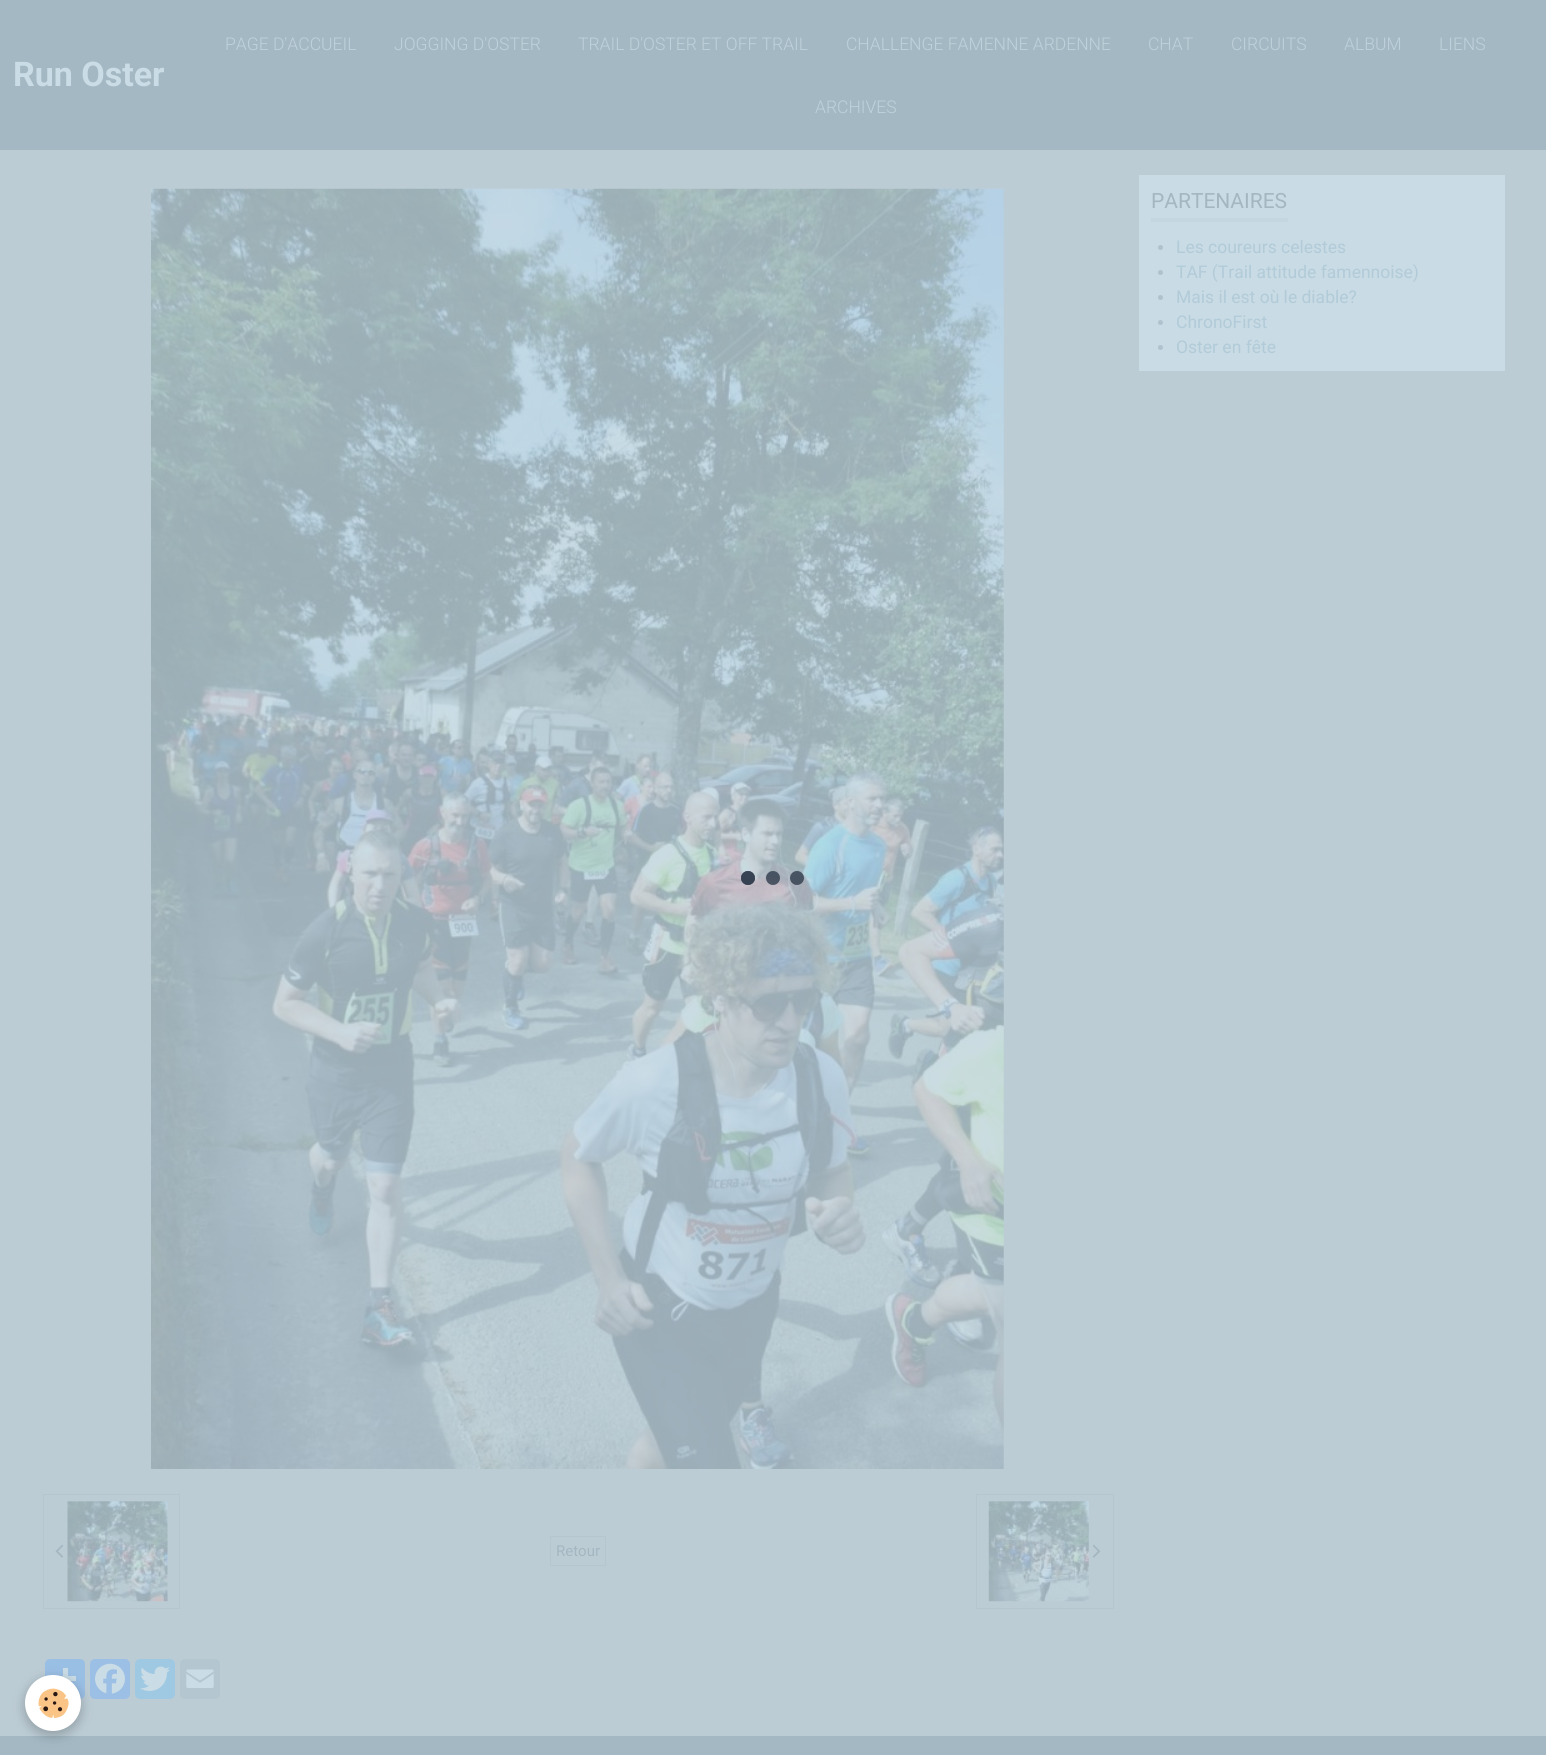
import math
import cairo

surface = cairo.ImageSurface(cairo.Format.RGB24, 1546, 1755)
ctx = cairo.Context(surface)
options = cairo.FontOptions()
options.set_hint_metrics(cairo.HintMetrics.OFF)
options.set_hint_style(cairo.HintStyle.NONE)
ctx.set_font_options(options)
ctx.set_miter_limit(4)


def ink(r, g, b):
    ctx.set_source_rgb(r / 255, g / 255, b / 255)


def write(x, y, s, family, size, color, bold=False, italic=False):
    ctx.select_font_face(family, cairo.FontSlant.ITALIC if italic else cairo.FontSlant.NORMAL, cairo.FontWeight.BOLD if bold else cairo.FontWeight.NORMAL)
    ctx.set_font_size(size)
    ink(*color)
    ctx.move_to(x, y)
    ctx.show_text(s)


def block(x, y, w, h, *color):
    ink(*color)
    ctx.rectangle(x, y, w, h)
    ctx.fill()


def round_path(x, y, w, h, r):
    ctx.new_sub_path()
    for i, (u, v) in enumerate([(x + w - r, y + h - r), (x + r, y + h - r), (x + r, y + r), (x + w - r, y + r)]):
        ctx.arc(u, v, r, i * math.pi / 2, (i + 1) * math.pi / 2)
    ctx.close_path()


def blur_box(x, y, w, h, r, blur, alpha):
    ctx.push_group_with_content(cairo.Content.ALPHA)
    ctx.set_operator(cairo.Operator.SOURCE)
    for i in range(15, -16, -2):
        e = blur * i / 6
        if min(w, h) + 2 * e > 0:
            ctx.set_source_rgba(0, 0, 0, alpha * math.erfc((i - 1) / 8.5) / 2)
            round_path(x - e, y - e, w + 2 * e, h + 2 * e, max(0, min(r + e + blur * .6, min(w, h) / 2 + e)))
            ctx.fill()
    ctx.mask(ctx.pop_group())


def paste(path, x, y, w, h):
    ctx.save()
    ctx.set_source_surface(cairo.ImageSurface.create_from_png(path), x, y)
    ctx.rectangle(x, y, w, h)
    ctx.fill()
    ctx.restore()


s1 = dict(family="Roboto", size=34, color=(202, 220, 229), bold=True)
s2 = dict(family="Roboto Light", size=17.5, color=(191, 209, 219))
s3 = dict(family="Roboto", size=21, color=(164, 183, 193))
s4 = dict(family="Roboto", size=17.5, color=(177, 203, 216))
s5 = dict(family="Roboto", size=15, color=(164, 183, 193))

ink(188, 204, 213)
ctx.paint()
block(0, 0, 1546, 150, 163, 184, 195)
write(13, 86, "Run Oster", **s1)
write(225, 50, "PAGE D'ACCUEIL", **s2)
write(394, 50, "JOGGING D'OSTER", **s2)
write(578, 50, "TRAIL D'OSTER ET OFF TRAIL", **s2)
write(846, 50, "CHALLENGE FAMENNE ARDENNE", **s2)
write(1148, 50, "CHAT", **s2)
write(1231, 50, "CIRCUITS", **s2)
write(1344, 50, "ALBUM", **s2)
write(1439, 50, "LIENS", **s2)
write(815, 113, "ARCHIVES", **s2)
block(1139, 175, 366, 196, 201, 219, 228)
block(1151, 218, 137, 4, 196, 214, 223)
write(1151, 208, "PARTENAIRES", **s3)
ink(175, 194, 205)
ctx.new_path()
ctx.arc(1160.5, 247.5, 2.5, 0, 2 * math.pi)
ctx.fill()
write(1176, 253, "Les coureurs celestes", **s4)
ink(175, 194, 205)
ctx.new_path()
ctx.arc(1160.5, 272.5, 2.5, 0, 2 * math.pi)
ctx.fill()
write(1176, 278, "TAF (Trail attitude famennoise)", **s4)
ink(175, 194, 205)
ctx.new_path()
ctx.arc(1160.5, 297.5, 2.5, 0, 2 * math.pi)
ctx.fill()
write(1176, 303, "Mais il est où le diable?", **s4)
ink(175, 194, 205)
ctx.new_path()
ctx.arc(1160.5, 322.5, 2.5, 0, 2 * math.pi)
ctx.fill()
write(1176, 328, "ChronoFirst", **s4)
ink(175, 194, 205)
ctx.new_path()
ctx.arc(1160.5, 347.5, 2.5, 0, 2 * math.pi)
ctx.fill()
write(1176, 353, "Oster en fête", **s4)
paste("pic1.png", 151, 188, 853, 1281)
paste("pic2.png", 55, 1544, 9, 14)
paste("pic3.png", 67, 1501, 101, 101)
ctx.rectangle(43.5, 1494.5, 136, 114)
ink(181, 198, 207)
ctx.set_line_width(1)
ctx.stroke()
ctx.rectangle(550.5, 1536.5, 55, 29)
ctx.stroke()
write(556, 1556, "Retour", **s5)
paste("pic4.png", 988, 1501, 101, 101)
paste("pic5.png", 1092, 1544, 9, 14)
ctx.rectangle(976.5, 1494.5, 137, 114)
ink(181, 198, 207)
ctx.stroke()
ink(154, 191, 229)
round_path(45, 1659, 40, 40, 5)
ctx.fill()
block(63, 1668, 5, 8, 202, 220, 229)
block(54, 1676, 22, 5, 202, 220, 229)
ink(155, 191, 229)
round_path(90, 1659, 40, 40, 5)
ctx.fill()
paste("pic6.png", 95, 1663, 30, 31)
ink(159, 201, 226)
round_path(135, 1659, 40, 40, 5)
ctx.fill()
paste("pic7.png", 140, 1666, 30, 25)
ink(180, 198, 208)
round_path(180, 1659, 40, 40, 5)
ctx.fill()
paste("pic8.png", 186, 1669, 28, 19)
ctx.set_source_rgba(0.196, 0.243, 0.306, 0.81)
ctx.arc(748, 878, 7, 0, 2 * math.pi)
ctx.fill()
ctx.arc(748, 878, 7, 0, 2 * math.pi)
ctx.fill()
ctx.arc(773, 878, 7, 0, 2 * math.pi)
ctx.fill()
ctx.arc(797, 878, 7, 0, 2 * math.pi)
ctx.fill()
block(0, 1736, 1546, 19, 163, 184, 195)
ink(0, 0, 0)
blur_box(25, 1679, 56, 56, 28, 6, 0.24)
ink(255, 255, 255)
ctx.arc(53, 1703, 28, 0, 2 * math.pi)
ctx.fill()
paste("pic9.png", 38, 1688, 31, 30)
surface.write_to_png("screenshot.png")
